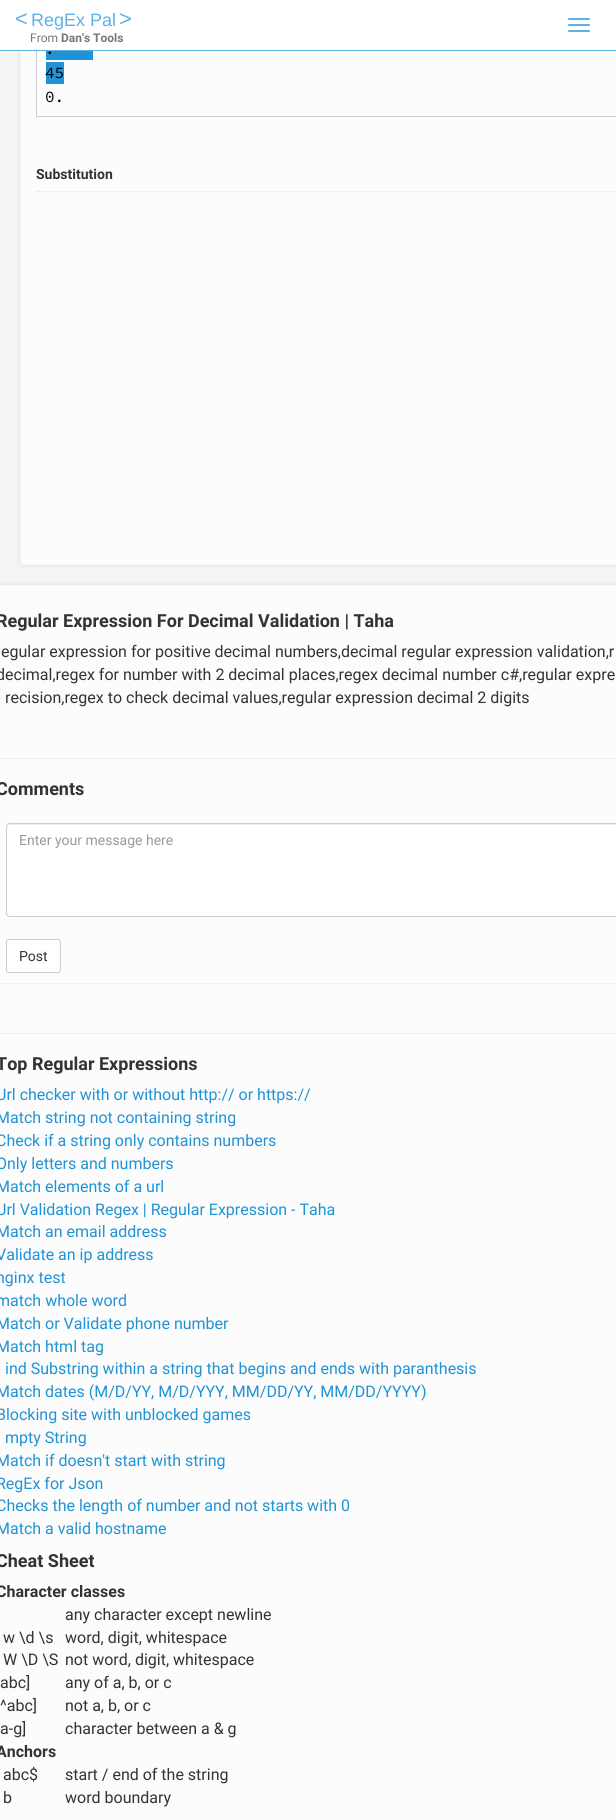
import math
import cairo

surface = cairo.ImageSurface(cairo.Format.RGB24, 616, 1820)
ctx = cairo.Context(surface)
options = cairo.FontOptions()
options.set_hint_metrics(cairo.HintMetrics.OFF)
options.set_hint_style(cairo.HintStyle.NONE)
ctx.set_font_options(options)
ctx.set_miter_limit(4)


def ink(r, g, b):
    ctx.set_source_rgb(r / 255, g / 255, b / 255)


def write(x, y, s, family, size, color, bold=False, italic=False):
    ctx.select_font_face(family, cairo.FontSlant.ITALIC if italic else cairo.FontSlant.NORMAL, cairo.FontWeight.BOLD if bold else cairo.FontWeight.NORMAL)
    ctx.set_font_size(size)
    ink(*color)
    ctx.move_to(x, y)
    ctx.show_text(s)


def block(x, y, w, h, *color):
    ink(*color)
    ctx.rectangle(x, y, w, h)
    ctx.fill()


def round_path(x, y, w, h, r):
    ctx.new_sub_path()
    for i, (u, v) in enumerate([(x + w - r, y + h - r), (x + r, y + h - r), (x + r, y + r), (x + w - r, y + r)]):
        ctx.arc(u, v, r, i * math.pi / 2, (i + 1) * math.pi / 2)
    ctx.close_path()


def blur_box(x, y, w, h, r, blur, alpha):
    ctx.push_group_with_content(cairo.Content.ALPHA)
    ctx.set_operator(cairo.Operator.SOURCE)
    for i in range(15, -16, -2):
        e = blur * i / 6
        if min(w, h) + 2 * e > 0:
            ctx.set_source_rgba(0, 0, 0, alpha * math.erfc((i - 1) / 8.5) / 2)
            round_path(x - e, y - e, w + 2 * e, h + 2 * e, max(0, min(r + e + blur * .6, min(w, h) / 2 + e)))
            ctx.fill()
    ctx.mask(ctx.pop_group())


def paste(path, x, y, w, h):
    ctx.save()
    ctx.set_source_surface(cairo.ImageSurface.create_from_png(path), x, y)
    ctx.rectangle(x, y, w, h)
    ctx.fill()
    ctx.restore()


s1 = dict(family="Liberation Sans", size=22, color=(95, 176, 228))
s2 = dict(family="Liberation Sans", size=18, color=(95, 176, 228))
s3 = dict(family="Roboto", size=12, color=(119, 119, 119))
s4 = dict(family="Roboto", size=12, color=(119, 119, 119), bold=True)
s5 = dict(family="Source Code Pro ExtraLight", size=16, color=(0, 0, 0))
s6 = dict(family="Roboto", size=14, color=(51, 51, 51), bold=True)
s7 = dict(family="Roboto", size=18, color=(51, 51, 51), bold=True)
s8 = dict(family="Roboto", size=16, color=(51, 51, 51))
s9 = dict(family="Roboto", size=14, color=(153, 153, 153))
s10 = dict(family="Roboto", size=14, color=(51, 51, 51))
s11 = dict(family="Roboto", size=16, color=(31, 147, 214))
s12 = dict(family="Roboto", size=16, color=(51, 51, 51), bold=True)

ink(245, 245, 245)
ctx.paint()
ink(216, 216, 216)
blur_box(20, -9, 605, 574, 3, 2, 1)
round_path(20.5, -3.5, 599, 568, 2.5)
ink(248, 248, 248)
ctx.set_line_width(1)
ctx.stroke()
ink(252, 252, 252)
ctx.new_path()
ctx.move_to(21, -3)
ctx.line_to(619, -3)
ctx.line_to(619, 561)
ctx.curve_to(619, 562.5, 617.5, 564, 616, 564)
ctx.line_to(24, 564)
ctx.curve_to(22.5, 564, 21, 562.5, 21, 561)
ctx.close_path()
ctx.fill()
ctx.rectangle(36.5, -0.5, 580, 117)
ink(204, 204, 204)
ctx.stroke()
block(0, 0, 616, 50, 255, 255, 255)
block(0, 50, 616, 1, 95, 176, 228)
write(15, 26, "<", **s1)
write(31, 26, "RegEx Pal", **s2)
write(119, 26, ">", **s1)
write(30, 42, "From", **s3)
write(61, 42, "Dan's Tools", **s4)
ink(95, 176, 228)
round_path(568, 18, 22, 2, 1)
ctx.fill()
round_path(568, 24, 22, 2, 1)
ctx.fill()
round_path(568, 30, 22, 2, 1)
ctx.fill()
paste("pic1.png", 46, 51, 47, 33)
write(45, 54, ".", **s5)
write(45, 78, "45", **s5)
write(45, 102, "0.", **s5)
block(36, 191, 580, 1, 238, 238, 238)
write(36, 179, "Substitution", **s6)
ink(216, 216, 216)
blur_box(-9, 585, 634, 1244, 3, 2, 1)
ctx.rectangle(-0.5, 585.5, 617, 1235)
ink(248, 248, 248)
ctx.stroke()
block(0, 586, 616, 1234, 252, 252, 252)
write(-4, 627, "Regular Expression For Decimal Validation | Taha", **s7)
write(1, 657, "egular expression for positive decimal numbers,decimal regular expression validation,r", **s8)
write(-4, 680, "decimal,regex for number with 2 decimal places,regex decimal number c#,regular expre", **s8)
write(5, 703, "recision,regex to check decimal values,regular expression decimal 2 digits", **s8)
block(0, 758, 616, 1, 238, 238, 238)
write(-4, 795, "Comments", **s7)
ink(255, 255, 255)
round_path(6, 823, 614, 94, 4)
ctx.fill()
ink(236, 236, 236)
ctx.new_path()
ctx.move_to(10, 825)
ctx.line_to(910, 825)
ctx.curve_to(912, 825, 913, 826, 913, 828)
ctx.curve_to(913, 826, 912, 824, 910, 824)
ctx.line_to(10, 824)
ctx.curve_to(8, 824, 7, 826, 7, 828)
ctx.curve_to(7, 826, 8, 825, 10, 825)
ctx.close_path()
ctx.fill()
round_path(6.5, 823.5, 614, 93, 3.5)
ink(204, 204, 204)
ctx.stroke()
write(19, 845, "Enter your message here", **s9)
ink(255, 255, 255)
round_path(6.5, 939.5, 54, 33, 2.5)
ctx.fill_preserve()
ink(204, 204, 204)
ctx.stroke()
write(19, 961, "Post", **s10)
block(0, 983, 616, 1, 238, 238, 238)
block(0, 1033, 616, 1, 238, 238, 238)
write(-4, 1070, "Top Regular Expressions", **s7)
write(-4, 1100, "Url checker with or without http:// or https://", **s11)
write(-4, 1123, "Match string not containing string", **s11)
write(-4, 1146, "Check if a string only contains numbers", **s11)
write(-4, 1169, "Only letters and numbers", **s11)
write(-4, 1192, "Match elements of a url", **s11)
write(-4, 1215, "Url Validation Regex | Regular Expression - Taha", **s11)
write(-4, 1237, "Match an email address", **s11)
write(-4, 1260, "Validate an ip address", **s11)
write(-4, 1283, "nginx test", **s11)
write(-4, 1306, "match whole word", **s11)
write(-4, 1329, "Match or Validate phone number", **s11)
write(-4, 1352, "Match html tag", **s11)
write(5, 1374, "ind Substring within a string that begins and ends with paranthesis", **s11)
write(-4, 1397, "Match dates (M/D/YY, M/D/YYY, MM/DD/YY, MM/DD/YYYY)", **s11)
write(-4, 1420, "Blocking site with unblocked games", **s11)
write(5, 1443, "mpty String", **s11)
write(-4, 1466, "Match if doesn't start with string", **s11)
write(-4, 1489, "RegEx for Json", **s11)
write(-4, 1511, "Checks the length of number and not starts with 0", **s11)
write(-4, 1534, "Match a valid hostname", **s11)
write(-4, 1567, "Cheat Sheet", **s7)
write(-4, 1597, "Character classes", **s12)
write(65, 1620, "any character except newline", **s8)
write(3, 1643, "w \\d \\s", **s8)
write(65, 1643, "word, digit, whitespace", **s8)
write(3, 1665, "W \\D \\S", **s8)
write(65, 1665, "not word, digit, whitespace", **s8)
write(0, 1688, "abc]", **s8)
write(65, 1688, "any of a, b, or c", **s8)
write(0, 1711, "^abc]", **s8)
write(65, 1711, "not a, b, or c", **s8)
write(0, 1734, "a-g]", **s8)
write(65, 1734, "character between a & g", **s8)
write(-4, 1757, "Anchors", **s12)
write(3, 1780, "abc$", **s8)
write(65, 1780, "start / end of the string", **s8)
write(3, 1803, "b", **s8)
write(65, 1803, "word boundary", **s8)
surface.write_to_png("screenshot.png")
